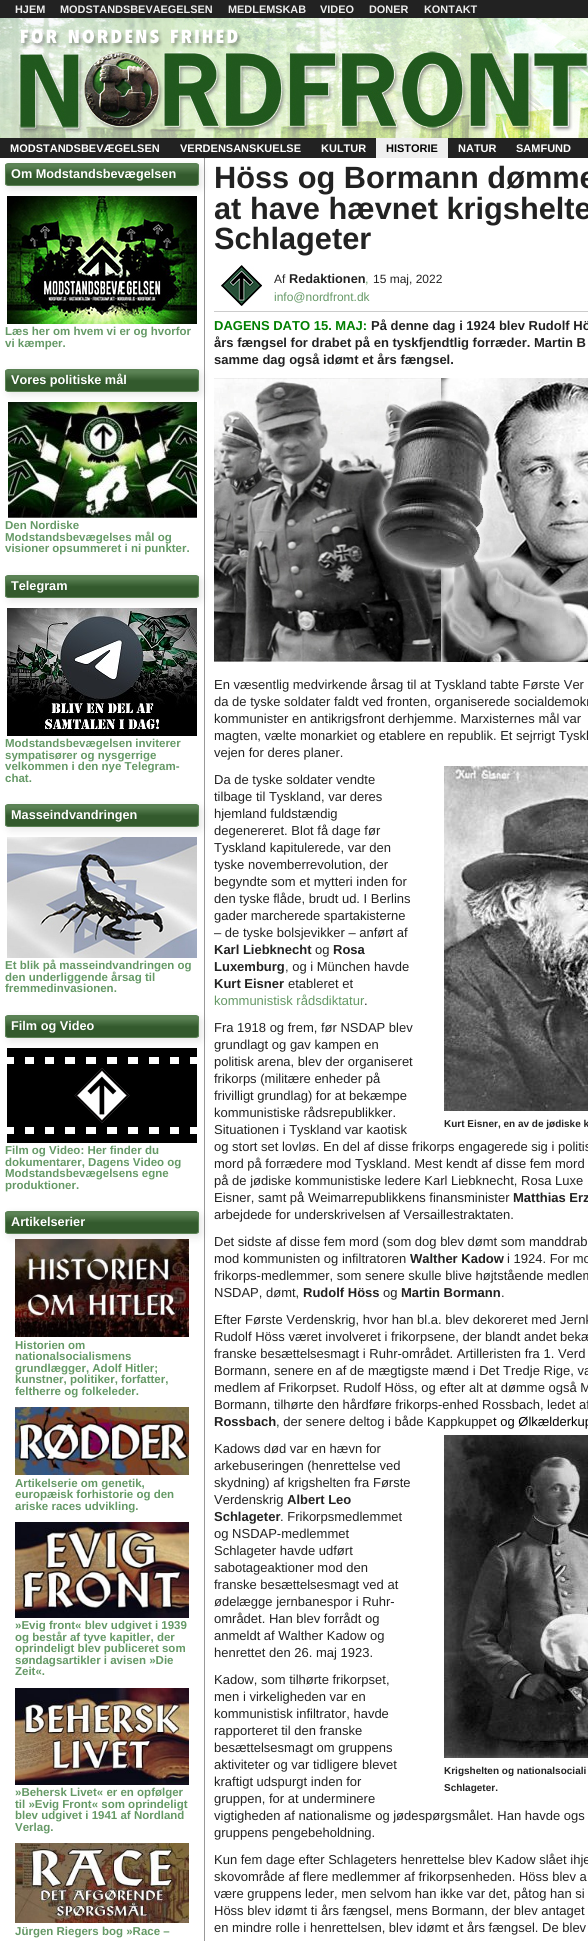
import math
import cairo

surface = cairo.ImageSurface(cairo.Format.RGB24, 588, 1941)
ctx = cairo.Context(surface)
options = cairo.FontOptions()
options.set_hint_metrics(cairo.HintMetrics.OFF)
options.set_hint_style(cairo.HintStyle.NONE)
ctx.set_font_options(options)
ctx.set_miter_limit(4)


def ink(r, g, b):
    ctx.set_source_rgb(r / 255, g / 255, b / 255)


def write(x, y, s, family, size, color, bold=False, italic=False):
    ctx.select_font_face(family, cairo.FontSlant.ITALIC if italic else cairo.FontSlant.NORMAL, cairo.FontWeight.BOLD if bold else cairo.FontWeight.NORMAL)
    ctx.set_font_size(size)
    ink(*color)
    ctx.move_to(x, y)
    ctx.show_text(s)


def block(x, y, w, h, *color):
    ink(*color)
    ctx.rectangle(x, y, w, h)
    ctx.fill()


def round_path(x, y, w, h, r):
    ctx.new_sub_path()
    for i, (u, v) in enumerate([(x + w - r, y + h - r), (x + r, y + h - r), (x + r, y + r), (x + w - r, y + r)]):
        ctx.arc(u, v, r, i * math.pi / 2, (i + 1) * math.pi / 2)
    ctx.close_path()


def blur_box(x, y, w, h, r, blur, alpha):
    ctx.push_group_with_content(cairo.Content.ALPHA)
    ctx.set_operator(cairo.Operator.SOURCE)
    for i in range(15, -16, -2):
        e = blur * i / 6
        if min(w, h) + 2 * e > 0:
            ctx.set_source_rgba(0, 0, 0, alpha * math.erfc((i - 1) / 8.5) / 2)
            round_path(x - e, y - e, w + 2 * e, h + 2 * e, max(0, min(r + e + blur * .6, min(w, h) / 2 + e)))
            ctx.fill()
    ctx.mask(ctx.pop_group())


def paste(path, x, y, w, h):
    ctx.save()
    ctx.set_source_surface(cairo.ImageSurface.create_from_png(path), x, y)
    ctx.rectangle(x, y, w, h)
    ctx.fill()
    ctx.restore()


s1 = dict(family="Liberation Sans", size=10.9, color=(238, 238, 238), bold=True)
s2 = dict(family="Liberation Sans", size=11, color=(255, 255, 255), bold=True)
s3 = dict(family="Liberation Sans", size=11, color=(0, 0, 0), bold=True)
s4 = dict(family="Liberation Sans", size=12.7, color=(255, 255, 255), bold=True)
s5 = dict(family="Liberation Sans", size=11.5, color=(101, 153, 102), bold=True)
s6 = dict(family="Liberation Sans", size=30.75, color=(34, 34, 34), bold=True)
s7 = dict(family="Liberation Sans", size=12, color=(34, 34, 34))
s8 = dict(family="Liberation Sans", size=12.75, color=(34, 34, 34), bold=True)
s9 = dict(family="Liberation Sans", size=12.75, color=(101, 153, 102))
s10 = dict(family="Liberation Sans", size=12, color=(101, 153, 102))
s11 = dict(family="Liberation Sans", size=13, color=(0, 128, 0), bold=True)
s12 = dict(family="Liberation Sans", size=13, color=(34, 34, 34), bold=True)
s13 = dict(family="Liberation Sans", size=13, color=(34, 34, 34))
s14 = dict(family="Liberation Sans", size=13, color=(101, 153, 102))
s15 = dict(family="Liberation Sans", size=10, color=(34, 34, 34), bold=True)
s16 = dict(family="Liberation Sans", size=13, color=(0, 0, 0))

ink(255, 255, 255)
ctx.paint()
block(0, 0, 588, 18, 34, 34, 34)
write(15, 13, "HJEM", **s1)
write(60, 13, "MODSTANDSBEVAEGELSEN", **s1)
write(228, 13, "MEDLEMSKAB", **s1)
write(320, 13, "VIDEO", **s1)
write(369, 13, "DONER", **s1)
write(424, 13, "KONTAKT", **s1)
paste("pic1.png", 0, 18, 588, 120)
block(204, 158, 1, 1783, 153, 153, 153)
block(0, 138, 588, 20, 34, 34, 34)
write(10, 152, "MODSTANDSBEVÆGELSEN", **s2)
write(180, 152, "VERDENSANSKUELSE", **s2)
write(321, 152, "KULTUR", **s2)
block(376, 138, 72, 20, 239, 239, 239)
write(386, 152, "HISTORIE", **s3)
write(458, 152, "NATUR", **s2)
write(516, 152, "SAMFUND", **s2)
ink(0, 0, 0)
blur_box(8, 166, 194, 23, 3, 4, 0.1)
ctx.save()
round_path(5, 163, 194, 23, 3)
ctx.clip()
gradient = cairo.LinearGradient(6, 185, 6, 164)
gradient.add_color_stop_rgba(0.49, 0.2, 0.353, 0.176, 1)
gradient.add_color_stop_rgba(0.9, 0.357, 0.51, 0.333, 1)
ctx.set_source(gradient)
ctx.rectangle(5, 164, 194, 21)
ctx.fill()
ctx.restore()
round_path(5.5, 163.5, 193, 22, 2.5)
ink(91, 130, 85)
ctx.set_line_width(1)
ctx.stroke()
write(11, 178, "Om Modstandsbevægelsen", **s4)
paste("pic2.png", 7, 196, 190, 128)
write(5, 335, "Læs her om hvem vi er og hvorfor", **s5)
write(5, 347, "vi kæmper.", **s5)
ink(0, 0, 0)
blur_box(8, 372, 194, 23, 3, 4, 0.1)
ctx.save()
round_path(5, 369, 194, 23, 3)
ctx.clip()
gradient = cairo.LinearGradient(6, 391, 6, 370)
gradient.add_color_stop_rgba(0.49, 0.2, 0.353, 0.176, 1)
gradient.add_color_stop_rgba(0.9, 0.357, 0.51, 0.333, 1)
ctx.set_source(gradient)
ctx.rectangle(5, 370, 194, 21)
ctx.fill()
ctx.restore()
round_path(5.5, 369.5, 193, 22, 2.5)
ink(91, 130, 85)
ctx.stroke()
write(11, 384, "Vores politiske mål", **s4)
paste("pic3.png", 8, 402, 189, 116)
write(5, 529, "Den Nordiske", **s5)
write(5, 541, "Modstandsbevægelses mål og", **s5)
write(5, 552, "visioner opsummeret i ni punkter.", **s5)
ink(0, 0, 0)
blur_box(8, 578, 194, 23, 3, 4, 0.1)
ctx.save()
round_path(5, 575, 194, 23, 3)
ctx.clip()
gradient = cairo.LinearGradient(6, 597, 6, 576)
gradient.add_color_stop_rgba(0.49, 0.2, 0.353, 0.176, 1)
gradient.add_color_stop_rgba(0.9, 0.357, 0.51, 0.333, 1)
ctx.set_source(gradient)
ctx.rectangle(5, 576, 194, 21)
ctx.fill()
ctx.restore()
round_path(5.5, 575.5, 193, 22, 2.5)
ink(91, 130, 85)
ctx.stroke()
write(11, 590, "Telegram", **s4)
paste("pic4.png", 7, 608, 190, 128)
write(5, 747, "Modstandsbevægelsen inviterer", **s5)
write(5, 759, "sympatisører og nysgerrige", **s5)
write(5, 770, "velkommen i den nye Telegram-", **s5)
write(5, 782, "chat.", **s5)
ink(0, 0, 0)
blur_box(8, 807, 194, 23, 3, 4, 0.1)
ctx.save()
round_path(5, 804, 194, 23, 3)
ctx.clip()
gradient = cairo.LinearGradient(6, 826, 6, 805)
gradient.add_color_stop_rgba(0.49, 0.2, 0.353, 0.176, 1)
gradient.add_color_stop_rgba(0.9, 0.357, 0.51, 0.333, 1)
ctx.set_source(gradient)
ctx.rectangle(5, 805, 194, 21)
ctx.fill()
ctx.restore()
round_path(5.5, 804.5, 193, 22, 2.5)
ink(91, 130, 85)
ctx.stroke()
write(11, 819, "Masseindvandringen", **s4)
paste("pic5.png", 7, 837, 190, 121)
write(5, 969, "Et blik på masseindvandringen og", **s5)
write(5, 981, "den underliggende årsag til", **s5)
write(5, 992, "fremmedinvasionen.", **s5)
ink(0, 0, 0)
blur_box(8, 1018, 194, 23, 3, 4, 0.1)
ctx.save()
round_path(5, 1015, 194, 23, 3)
ctx.clip()
gradient = cairo.LinearGradient(6, 1037, 6, 1016)
gradient.add_color_stop_rgba(0.49, 0.2, 0.353, 0.176, 1)
gradient.add_color_stop_rgba(0.9, 0.357, 0.51, 0.333, 1)
ctx.set_source(gradient)
ctx.rectangle(5, 1016, 194, 21)
ctx.fill()
ctx.restore()
round_path(5.5, 1015.5, 193, 22, 2.5)
ink(91, 130, 85)
ctx.stroke()
write(11, 1030, "Film og Video", **s4)
paste("pic6.png", 7, 1048, 190, 95)
write(5, 1154, "Film og Video: Her finder du", **s5)
write(5, 1166, "dokumentarer, Dagens Video og", **s5)
write(5, 1177, "Modstandsbevægelsens egne", **s5)
write(5, 1189, "produktioner.", **s5)
ink(0, 0, 0)
blur_box(8, 1214, 194, 23, 3, 4, 0.1)
ctx.save()
round_path(5, 1211, 194, 23, 3)
ctx.clip()
gradient = cairo.LinearGradient(6, 1233, 6, 1212)
gradient.add_color_stop_rgba(0.49, 0.2, 0.353, 0.176, 1)
gradient.add_color_stop_rgba(0.9, 0.357, 0.51, 0.333, 1)
ctx.set_source(gradient)
ctx.rectangle(5, 1212, 194, 21)
ctx.fill()
ctx.restore()
round_path(5.5, 1211.5, 193, 22, 2.5)
ink(91, 130, 85)
ctx.stroke()
write(11, 1226, "Artikelserier", **s4)
paste("pic7.png", 15, 1239, 174, 98)
write(15, 1349, "Historien om", **s5)
write(15, 1360, "nationalsocialismens", **s5)
write(15, 1372, "grundlægger, Adolf Hitler;", **s5)
write(15, 1383, "kunstner, politiker, forfatter,", **s5)
write(15, 1395, "feltherre og folkeleder.", **s5)
paste("pic8.png", 15, 1407, 174, 68)
write(15, 1487, "Artikelserie om genetik,", **s5)
write(15, 1498, "europæisk forhistorie og den", **s5)
write(15, 1510, "ariske races udvikling.", **s5)
paste("pic9.png", 15, 1522, 174, 96)
write(15, 1629, "»Evig front« blev udgivet i 1939", **s5)
write(15, 1641, "og består af tyve kapitler, der", **s5)
write(15, 1652, "oprindeligt blev publiceret som", **s5)
write(15, 1664, "søndagsartikler i avisen »Die", **s5)
write(15, 1675, "Zeit«.", **s5)
paste("pic10.png", 15, 1688, 174, 97)
write(15, 1796, "»Behersk Livet« er en opfølger", **s5)
write(15, 1808, "til »Evig Front« som oprindeligt", **s5)
write(15, 1819, "blev udgivet i 1941 af Nordland", **s5)
write(15, 1831, "Verlag.", **s5)
paste("pic11.png", 15, 1843, 174, 80)
write(15, 1935, "Jürgen Riegers bog »Race –", **s5)
write(214, 188, "Höss og Bormann dømme", **s6)
write(214, 219, "at have hævnet krigshelte", **s6)
write(214, 249, "Schlageter", **s6)
block(214, 311, 374, 1, 204, 204, 204)
paste("pic12.png", 221, 265, 41, 41)
write(274, 283, "Af", **s7)
write(289, 283, "Redaktionen", **s8)
write(365, 283, ",", **s9)
write(373, 283, "15 maj, 2022", **s7)
write(274, 301, "info@nordfront.dk", **s10)
write(214, 330, "DAGENS DATO 15. MAJ:", **s11)
write(371, 330, "På denne dag i 1924 blev Rudolf Hö", **s12)
write(214, 347, "års fængsel for drabet på en tyskfjendtlig forræder. Martin B", **s12)
write(214, 364, "samme dag også idømt et års fængsel.", **s12)
paste("pic13.png", 214, 378, 374, 284)
write(214, 689, "En væsentlig medvirkende årsag til at Tyskland tabte Første Ver", **s13)
write(214, 706, "da de tyske soldater faldt ved fronten, organiserede socialdemokr", **s13)
write(214, 723, "kommunister en antikrigsfront derhjemme. Marxisternes mål var", **s13)
write(214, 740, "magten, vælte monarkiet og etablere en republik. Et sejrrigt Tyskl", **s13)
write(214, 757, "vejen for deres planer.", **s13)
write(214, 784, "Da de tyske soldater vendte", **s13)
write(214, 801, "tilbage til Tyskland, var deres", **s13)
write(214, 818, "hjemland fuldstændig", **s13)
write(214, 835, "degenereret. Blot få dage før", **s13)
write(214, 852, "Tyskland kapitulerede, var den", **s13)
write(214, 869, "tyske novemberrevolution, der", **s13)
write(214, 886, "begyndte som et mytteri inden for", **s13)
write(214, 903, "den tyske flåde, brudt ud. I Berlins", **s13)
write(214, 920, "gader marcherede spartakisterne", **s13)
write(214, 937, "– de tyske bolsjevikker – anført af", **s13)
write(214, 954, "Karl Liebknecht", **s12)
write(315, 954, "og", **s13)
write(333, 954, "Rosa", **s12)
write(214, 971, "Luxemburg", **s12)
write(285, 971, ", og i München havde", **s13)
write(214, 988, "Kurt Eisner", **s12)
write(288, 988, "etableret et", **s13)
write(214, 1005, "kommunistisk rådsdiktatur", **s14)
write(364, 1005, ".", **s13)
write(214, 1032, "Fra 1918 og frem, før NSDAP blev", **s13)
write(214, 1049, "grundlagt og gav kampen en", **s13)
write(214, 1066, "politisk arena, blev der organiseret", **s13)
write(214, 1083, "frikorps (militære enheder på", **s13)
write(214, 1100, "frivilligt grundlag) for at bekæmpe", **s13)
write(214, 1117, "kommunistiske rådsrepublikker.", **s13)
write(214, 1134, "Situationen i Tyskland var kaotisk", **s13)
write(214, 1151, "og stort set lovløs. En del af disse frikorps engagerede sig i politis", **s13)
write(214, 1168, "mord på forrædere mod Tyskland. Mest kendt af disse fem mord", **s13)
write(214, 1185, "på de jødiske kommunistiske ledere Karl Liebknecht, Rosa Luxe", **s13)
write(214, 1202, "Eisner, samt på Weimarrepublikkens finansminister", **s13)
write(513, 1202, "Matthias Erz", **s12)
write(214, 1219, "arbejdede for underskrivelsen af Versaillestraktaten.", **s13)
paste("pic14.png", 444, 766, 144, 345)
write(444, 1127, "Kurt Eisner, en av de jødiske k", **s15)
write(214, 1246, "Det sidste af disse fem mord (som dog blev dømt som manddrab", **s13)
write(214, 1263, "mod kommunisten og infiltratoren", **s13)
write(410, 1263, "Walther Kadow", **s12)
write(507, 1263, "i 1924. For mo", **s13)
write(214, 1280, "frikorps-medlemmer, som senere skulle blive højtstående medlem", **s13)
write(214, 1297, "NSDAP, dømt,", **s13)
write(303, 1297, "Rudolf Höss", **s12)
write(383, 1297, "og", **s13)
write(401, 1297, "Martin Bormann", **s12)
write(501, 1297, ".", **s13)
write(214, 1324, "Efter Første Verdenskrig, hvor han bl.a. blev dekoreret med Jernk", **s13)
write(214, 1341, "Rudolf Höss været involveret i frikorpsene, der blandt andet bekæ", **s13)
write(214, 1358, "franske besættelsesmagt i Ruhr-området. Artilleristen fra 1. Verd", **s13)
write(214, 1375, "Bormann, senere en af de mægtigste mænd i Det Tredje Rige, va", **s13)
write(214, 1392, "medlem af Frikorpset. Rudolf Höss, og efter alt at dømme også M", **s13)
write(214, 1409, "Bormann, tilhørte den hårdføre frikorps-enhed Rossbach, ledet af", **s13)
write(214, 1426, "Rossbach", **s12)
write(276, 1426, ", der senere deltog i både Kappkuppe", **s13)
write(493, 1426, "t og Ølkælderkup", **s16)
write(214, 1453, "Kadows død var en hævn for", **s13)
write(214, 1470, "arkebuseringen (henrettelse ved", **s13)
write(214, 1487, "skydning) af krigshelten fra Første", **s13)
write(214, 1504, "Verdenskrig", **s13)
write(287, 1504, "Albert Leo", **s12)
write(214, 1521, "Schlageter", **s12)
write(280, 1521, ". Frikorpsmedlemmet", **s13)
write(214, 1538, "og NSDAP-medlemmet", **s13)
write(214, 1555, "Schlageter havde udført", **s13)
write(214, 1572, "sabotageaktioner mod den", **s13)
write(214, 1589, "franske besættelsesmagt ved at", **s13)
write(214, 1606, "ødelægge jernbanespor i Ruhr-", **s13)
write(214, 1623, "området. Han blev forrådt og", **s13)
write(214, 1640, "anmeldt af Walther Kadow og", **s13)
write(214, 1657, "henrettet den 26. maj 1923.", **s13)
write(214, 1684, "Kadow, som tilhørte frikorpset,", **s13)
write(214, 1701, "men i virkeligheden var en", **s13)
write(214, 1718, "kommunistisk infiltrator, havde", **s13)
write(214, 1735, "rapporteret til den franske", **s13)
write(214, 1752, "besættelsesmagt om gruppens", **s13)
write(214, 1769, "aktiviteter og var tidligere blevet", **s13)
write(214, 1786, "kraftigt udspurgt inden for", **s13)
write(214, 1803, "gruppen, for at underminere", **s13)
write(214, 1820, "vigtigheden af nationalisme og jødespørgsmålet. Han havde ogs", **s13)
write(214, 1837, "gruppens pengebeholdning.", **s13)
paste("pic15.png", 444, 1435, 144, 323)
write(444, 1774, "Krigshelten og nationalsociali", **s15)
write(444, 1791, "Schlageter.", **s15)
write(214, 1864, "Kun fem dage efter Schlageters henrettelse blev Kadow slået ihje", **s13)
write(214, 1881, "skovområde af flere medlemmer af frikorpsenheden. Höss blev a", **s13)
write(214, 1898, "være gruppens leder, men selvom han ikke var det, påtog han si", **s13)
write(214, 1915, "Höss blev idømt ti års fængsel, mens Bormann, der blev antaget", **s13)
write(214, 1932, "en mindre rolle i henrettelsen, blev idømt et års fængsel. De blev", **s13)
surface.write_to_png("screenshot.png")
